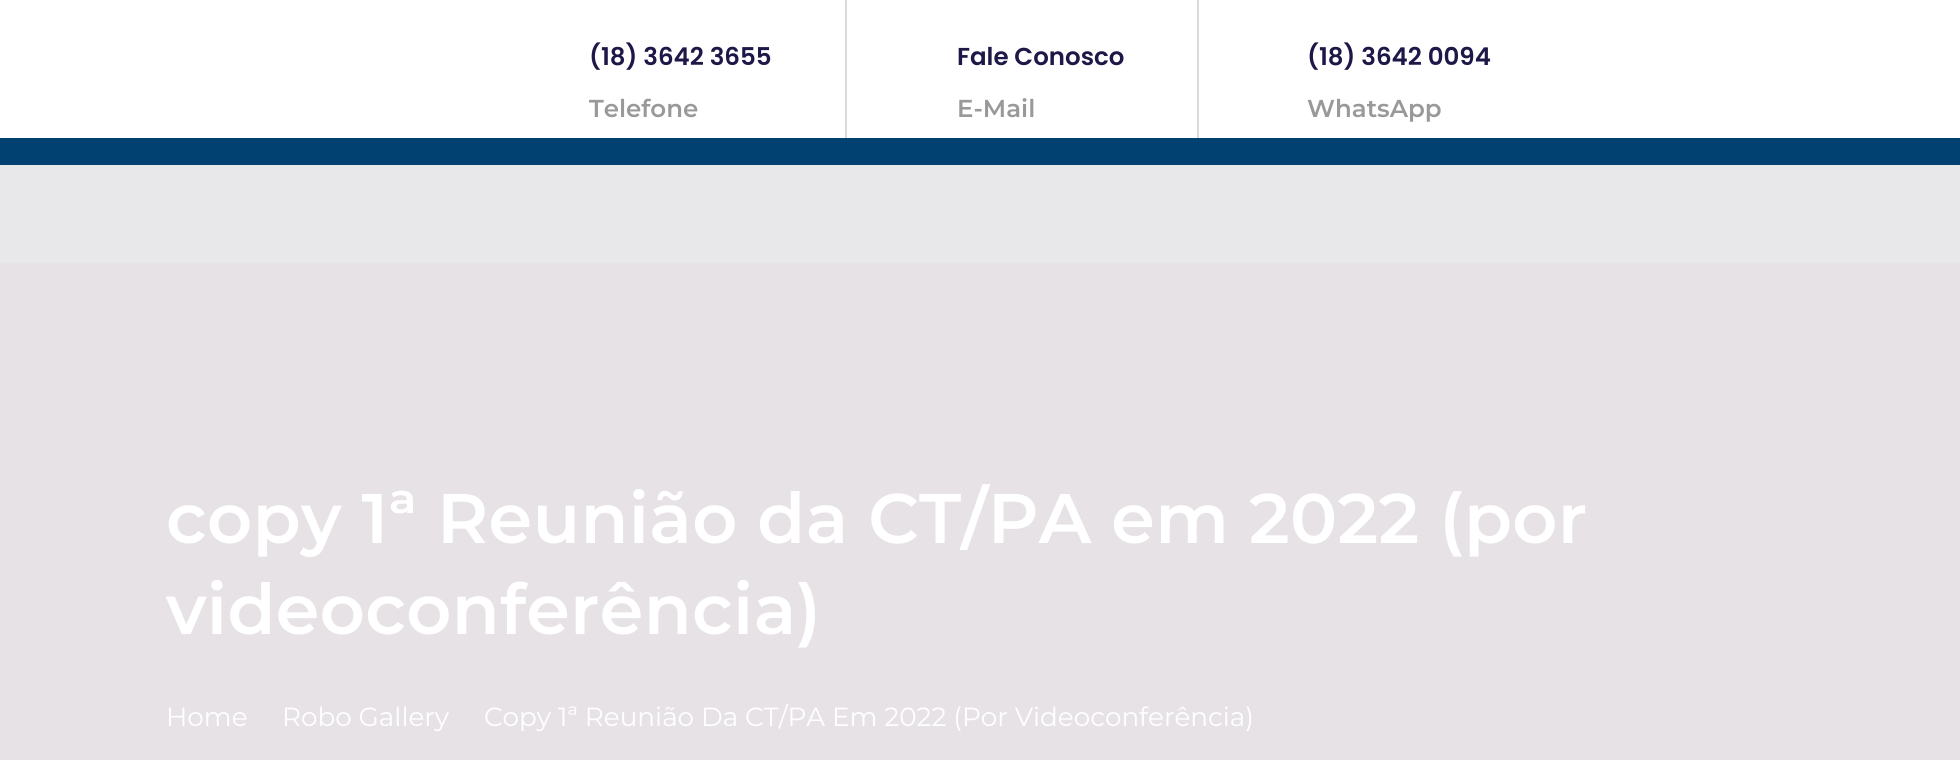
import math
import cairo

surface = cairo.ImageSurface(cairo.Format.RGB24, 1960, 760)
ctx = cairo.Context(surface)
options = cairo.FontOptions()
options.set_hint_metrics(cairo.HintMetrics.OFF)
options.set_hint_style(cairo.HintStyle.NONE)
ctx.set_font_options(options)
ctx.set_miter_limit(4)


def ink(r, g, b):
    ctx.set_source_rgb(r / 255, g / 255, b / 255)


def write(x, y, s, family, size, color, bold=False, italic=False):
    ctx.select_font_face(family, cairo.FontSlant.ITALIC if italic else cairo.FontSlant.NORMAL, cairo.FontWeight.BOLD if bold else cairo.FontWeight.NORMAL)
    ctx.set_font_size(size)
    ink(*color)
    ctx.move_to(x, y)
    ctx.show_text(s)


def write_spaced(x, y, s, letter, word):
    ctx.move_to(x, y)
    for ch in s:
        ctx.show_text(ch)
        ctx.rel_move_to(letter + word * (ch == ' '), 0)


def block(x, y, w, h, *color):
    ink(*color)
    ctx.rectangle(x, y, w, h)
    ctx.fill()


s1 = dict(family="Poppins SemiBold", size=24.5, color=(29, 24, 71))
s2 = dict(family="Montserrat SemiBold", size=24.5, color=(153, 153, 153))
s3 = dict(family="Montserrat", size=26.25, color=(255, 255, 255))

ink(232, 232, 234)
ctx.paint()
block(0, 0, 1960, 138, 255, 255, 255)
write(589, 65, "(18) 3642 3655", **s1)
write(589, 117, "Telefone", **s2)
block(1197, 0, 2, 138, 218, 218, 218)
block(845, 0, 2, 138, 218, 218, 218)
write(957, 65, "Fale Conosco", **s1)
write(957, 117, "E-Mail", **s2)
write(1307, 65, "(18) 3642 0094", **s1)
write(1307, 117, "WhatsApp", **s2)
block(0, 138, 1960, 27, 0, 65, 113)
block(0, 263, 1960, 497, 231, 226, 230)
ctx.set_font_size(70)
ink(255, 255, 255)
write_spaced(166, 543, "copy 1ª Reunião da CT/PA em 2022 (por", 0.35, 0)
write_spaced(166, 634, "videoconferência)", 0.35, 0)
write(166, 726, "Home", **s3)
write(282, 726, "Robo Gallery", **s3)
write(484, 726, "Copy 1ª Reunião Da CT/PA Em 2022 (Por Videoconferência)", **s3)
surface.write_to_png("screenshot.png")
